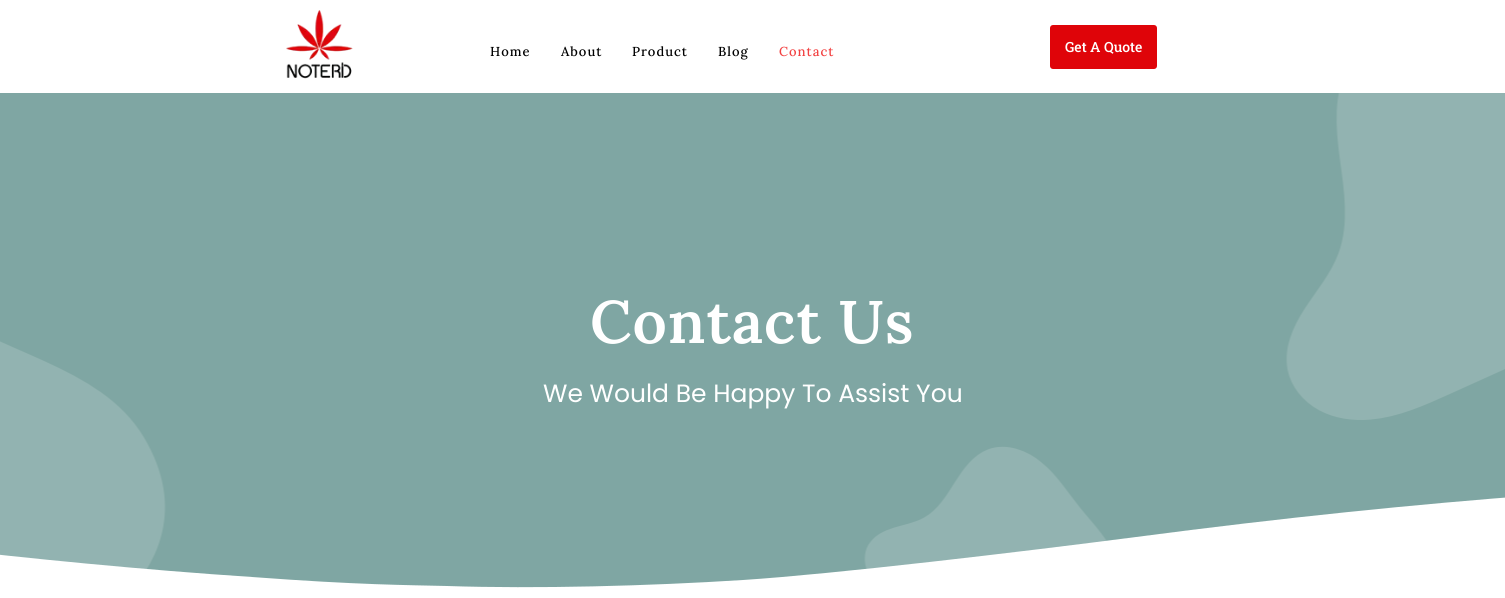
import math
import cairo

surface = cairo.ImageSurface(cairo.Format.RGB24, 1505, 598)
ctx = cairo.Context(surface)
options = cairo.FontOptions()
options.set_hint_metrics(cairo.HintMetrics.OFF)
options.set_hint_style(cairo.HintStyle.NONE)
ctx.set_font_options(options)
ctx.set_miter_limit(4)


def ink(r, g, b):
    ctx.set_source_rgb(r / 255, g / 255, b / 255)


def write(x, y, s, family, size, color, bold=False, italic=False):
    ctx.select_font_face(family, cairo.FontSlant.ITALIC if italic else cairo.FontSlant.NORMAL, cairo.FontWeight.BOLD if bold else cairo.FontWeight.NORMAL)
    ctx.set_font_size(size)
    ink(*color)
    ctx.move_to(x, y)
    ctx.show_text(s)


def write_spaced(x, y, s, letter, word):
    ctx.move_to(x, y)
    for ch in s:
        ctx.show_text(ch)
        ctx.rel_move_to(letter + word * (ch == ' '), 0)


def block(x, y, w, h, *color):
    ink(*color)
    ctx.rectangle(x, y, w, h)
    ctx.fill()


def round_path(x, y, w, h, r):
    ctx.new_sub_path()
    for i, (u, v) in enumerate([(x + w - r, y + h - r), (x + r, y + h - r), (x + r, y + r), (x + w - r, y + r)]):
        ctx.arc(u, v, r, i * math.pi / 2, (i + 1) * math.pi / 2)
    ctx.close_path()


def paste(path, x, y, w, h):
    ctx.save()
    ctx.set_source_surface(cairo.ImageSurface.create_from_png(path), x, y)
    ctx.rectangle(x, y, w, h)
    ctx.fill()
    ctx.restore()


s1 = dict(family="Roboto Slab Medium", size=14, color=(255, 255, 255))
s2 = dict(family="Poppins", size=25, color=(255, 255, 255))

ink(255, 255, 255)
ctx.paint()
paste("pic1.png", 286, 10, 67, 69)
ctx.select_font_face("Lora Medium")
ctx.set_font_size(13)
ink(0, 0, 0)
write_spaced(490, 56, "Home", 1, 0)
write_spaced(561, 56, "About", 1, 0)
write_spaced(632, 56, "Product", 1, 0)
write_spaced(718, 56, "Blog", 1, 0)
ink(242, 66, 66)
write_spaced(779, 56, "Contact", 1, 0)
ink(223, 4, 9)
round_path(1050, 25, 107, 44, 3)
ctx.fill()
write(1065, 52, "Get A Quote", **s1)
block(0, 93, 1505, 495, 127, 166, 163)
paste("pic2.png", 0, 93, 1505, 476)
ctx.select_font_face("Lora SemiBold")
ctx.set_font_size(60)
ink(255, 255, 255)
write_spaced(590, 343, "Contact Us", 1, 0)
write(543, 402, "We Would Be Happy To Assist You", **s2)
ctx.new_path()
ctx.move_to(447, 586)
ctx.curve_to(536, 589, 649, 586, 743, 580)
ctx.curve_to(835, 574, 1020, 552, 1136, 537)
ctx.curve_to(1433, 498, 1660, 484, 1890, 477)
ctx.curve_to(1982, 475, 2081, 473, 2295, 480)
ctx.curve_to(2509, 488, 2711, 511, 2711, 511)
ctx.line_to(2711, 594)
ctx.line_to(-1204, 594)
ctx.line_to(-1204, 558)
ctx.curve_to(-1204, 558, -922, 519, -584, 521)
ctx.curve_to(-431, 522, -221, 529, -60, 548)
ctx.curve_to(23, 558, 145, 570, 252, 577)
ctx.curve_to(359, 585, 407, 585, 447, 586)
ctx.close_path()
ctx.fill()
surface.write_to_png("screenshot.png")
